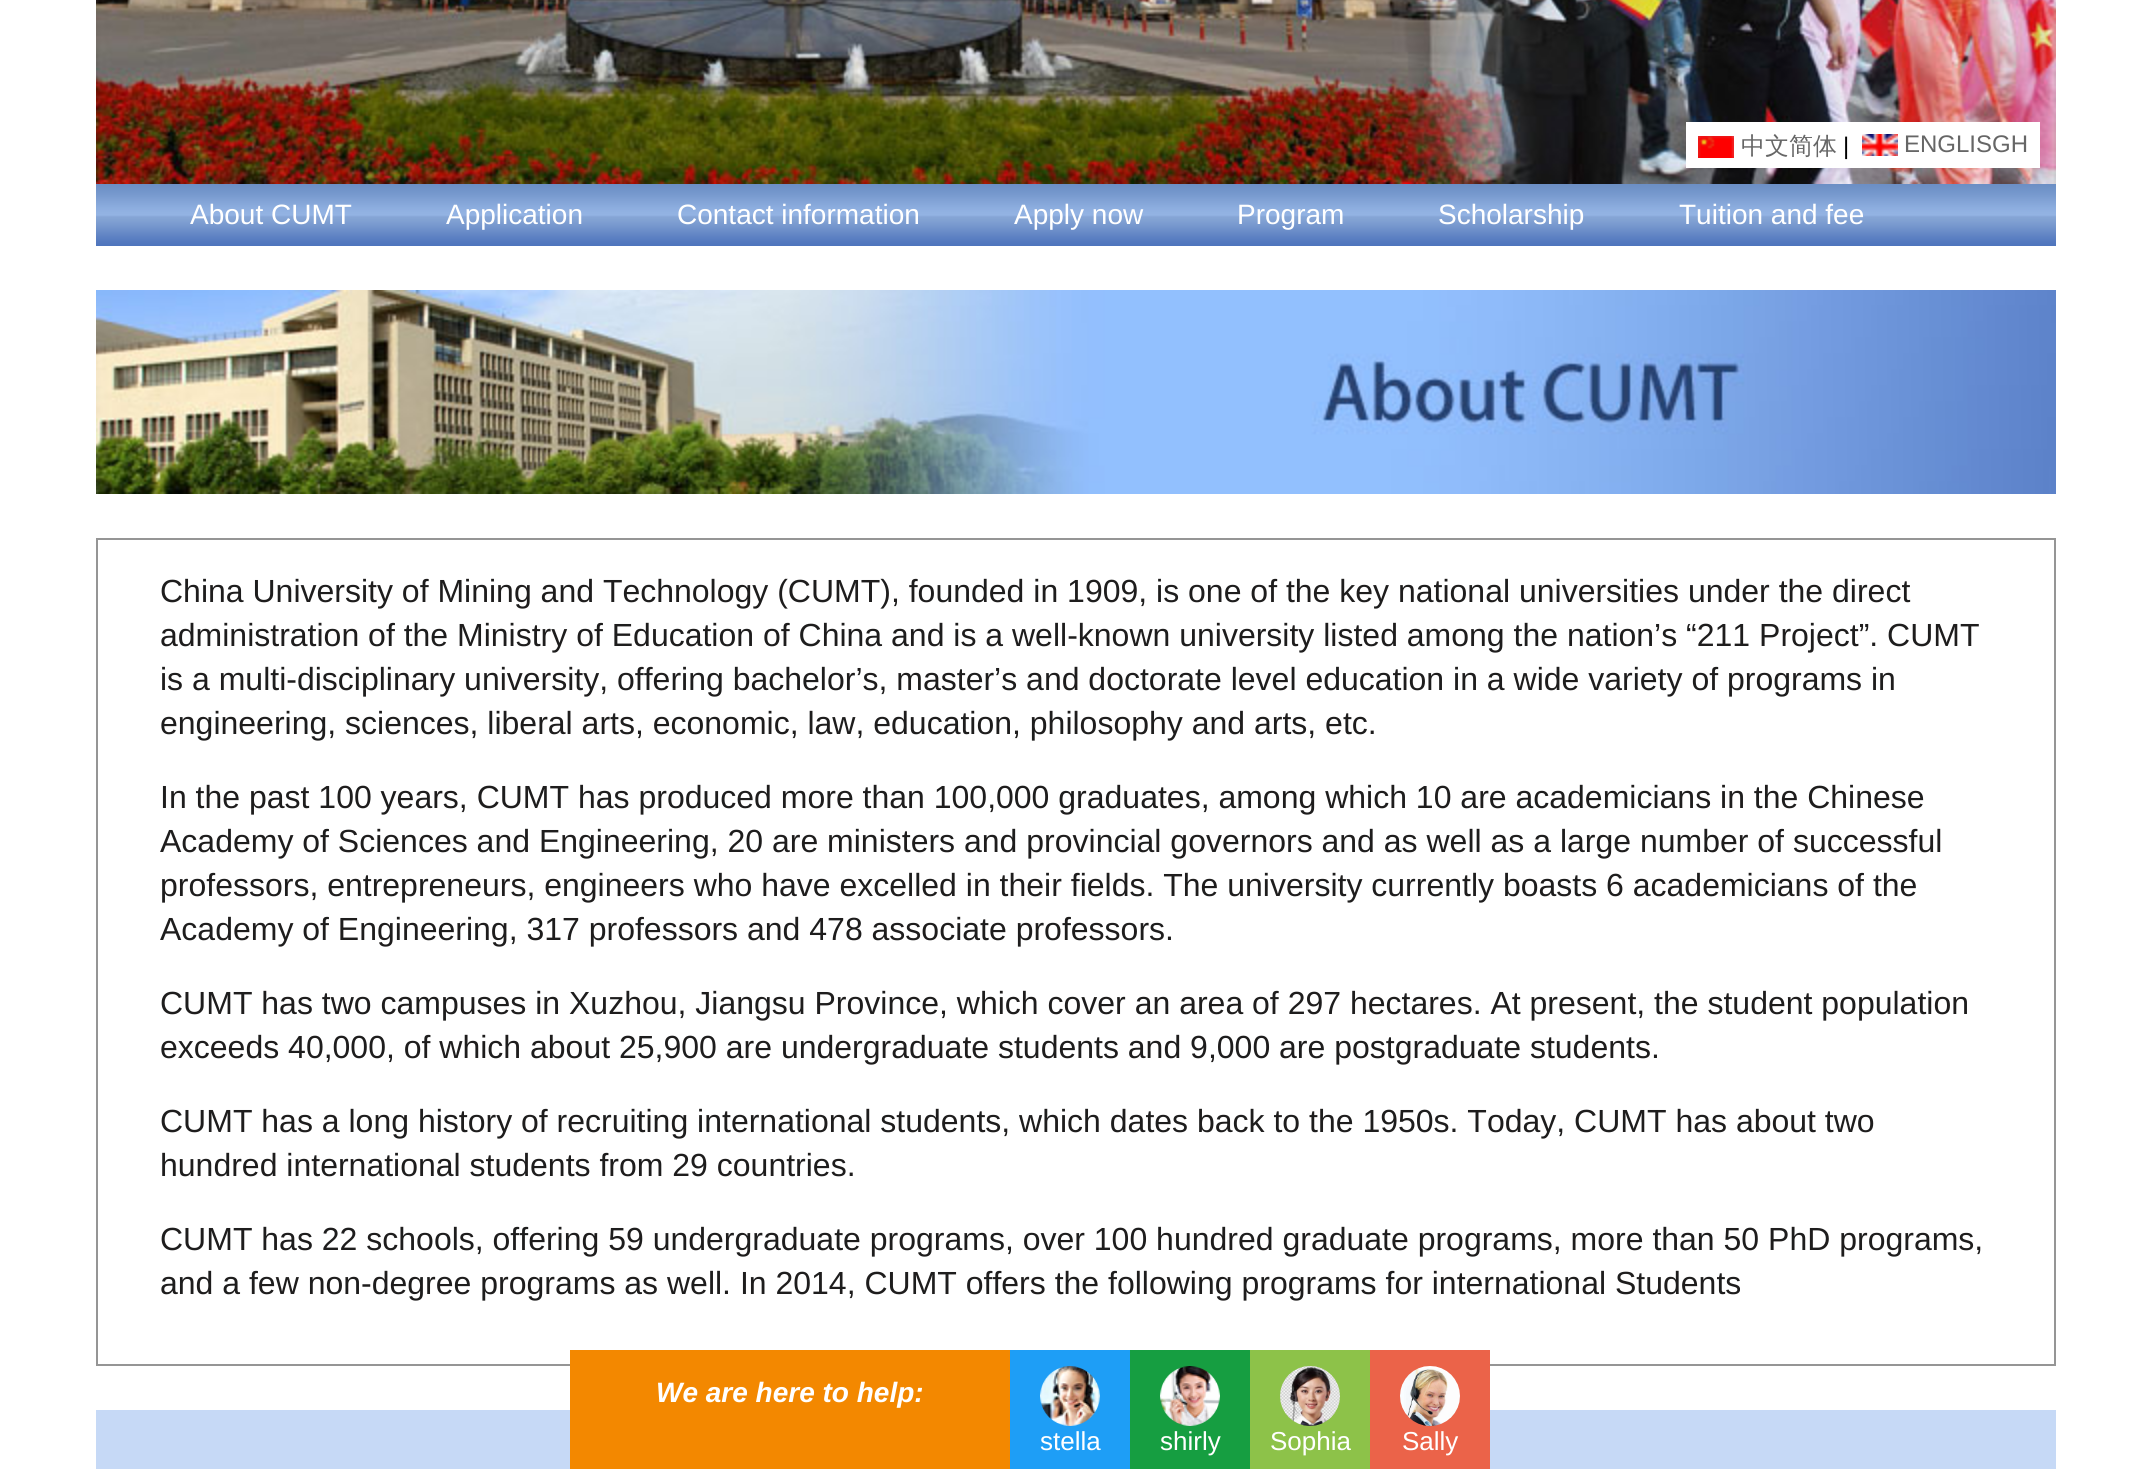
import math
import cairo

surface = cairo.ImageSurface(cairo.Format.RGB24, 2151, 1469)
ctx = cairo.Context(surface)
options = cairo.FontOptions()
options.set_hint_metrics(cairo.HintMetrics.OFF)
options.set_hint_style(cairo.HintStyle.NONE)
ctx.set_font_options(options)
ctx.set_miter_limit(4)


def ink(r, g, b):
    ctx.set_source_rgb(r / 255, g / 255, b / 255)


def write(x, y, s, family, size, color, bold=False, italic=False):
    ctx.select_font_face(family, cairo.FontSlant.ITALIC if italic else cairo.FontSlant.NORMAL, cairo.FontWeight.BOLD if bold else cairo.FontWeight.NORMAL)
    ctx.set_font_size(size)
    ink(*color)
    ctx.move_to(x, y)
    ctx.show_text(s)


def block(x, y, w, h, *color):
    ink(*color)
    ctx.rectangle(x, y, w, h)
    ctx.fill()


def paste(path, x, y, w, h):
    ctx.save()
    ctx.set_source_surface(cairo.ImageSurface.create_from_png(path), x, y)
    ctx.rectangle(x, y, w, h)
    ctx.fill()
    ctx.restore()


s1 = dict(family="WenQuanYi Zen Hei Medium", size=24, color=(102, 102, 102))
s2 = dict(family="Liberation Sans", size=24, color=(0, 0, 0))
s3 = dict(family="Liberation Sans", size=24, color=(102, 102, 102))
s4 = dict(family="Liberation Sans", size=28, color=(255, 255, 255))
s5 = dict(family="Liberation Sans", size=32, color=(30, 29, 29))
s6 = dict(family="Liberation Sans", size=28, color=(255, 255, 255), bold=True, italic=True)
s7 = dict(family="Liberation Sans", size=26, color=(255, 255, 255))

ink(255, 255, 255)
ctx.paint()
paste("pic1.png", 96, 0, 1960, 184)
block(1686, 122, 354, 46, 255, 255, 255)
paste("pic2.png", 1698, 136, 36, 22)
write(1741, 154, "中文简体", **s1)
write(1843, 154, "|", **s2)
paste("pic3.png", 1862, 134, 36, 22)
write(1904, 152, "ENGLISGH", **s3)
paste("pic4.png", 96, 184, 1960, 62)
write(190, 224, "About CUMT", **s4)
write(446, 224, "Application", **s4)
write(677, 224, "Contact information", **s4)
write(1014, 224, "Apply now", **s4)
write(1237, 224, "Program", **s4)
write(1438, 224, "Scholarship", **s4)
write(1679, 224, "Tuition and fee", **s4)
paste("pic5.png", 96, 290, 1960, 204)
ctx.rectangle(97, 539, 1958, 826)
ink(149, 149, 149)
ctx.stroke()
write(160, 602, "China University of Mining and Technology (CUMT), founded in 1909, is one of the key national universities under the direct", **s5)
write(160, 646, "administration of the Ministry of Education of China and is a well-known university listed among the nation’s “211 Project”. CUMT", **s5)
write(160, 690, "is a multi-disciplinary university, offering bachelor’s, master’s and doctorate level education in a wide variety of programs in", **s5)
write(160, 734, "engineering, sciences, liberal arts, economic, law, education, philosophy and arts, etc.", **s5)
write(160, 808, "In the past 100 years, CUMT has produced more than 100,000 graduates, among which 10 are academicians in the Chinese", **s5)
write(160, 852, "Academy of Sciences and Engineering, 20 are ministers and provincial governors and as well as a large number of successful", **s5)
write(160, 896, "professors, entrepreneurs, engineers who have excelled in their fields. The university currently boasts 6 academicians of the", **s5)
write(160, 940, "Academy of Engineering, 317 professors and 478 associate professors.", **s5)
write(160, 1014, "CUMT has two campuses in Xuzhou, Jiangsu Province, which cover an area of 297 hectares. At present, the student population", **s5)
write(160, 1058, "exceeds 40,000, of which about 25,900 are undergraduate students and 9,000 are postgraduate students.", **s5)
write(160, 1132, "CUMT has a long history of recruiting international students, which dates back to the 1950s. Today, CUMT has about two", **s5)
write(160, 1176, "hundred international students from 29 countries.", **s5)
write(160, 1250, "CUMT has 22 schools, offering 59 undergraduate programs, over 100 hundred graduate programs, more than 50 PhD programs,", **s5)
write(160, 1294, "and a few non-degree programs as well. In 2014, CUMT offers the following programs for international Students", **s5)
block(96, 1410, 1960, 59, 198, 217, 246)
block(570, 1350, 440, 119, 243, 136, 0)
write(656, 1402, "We are here to help:", **s6)
block(1010, 1350, 120, 119, 30, 158, 246)
paste("pic6.png", 1040, 1366, 60, 60)
write(1040, 1450, "stella", **s7)
block(1130, 1350, 120, 119, 22, 158, 65)
paste("pic7.png", 1160, 1366, 60, 60)
write(1160, 1450, "shirly", **s7)
block(1250, 1350, 120, 119, 141, 194, 73)
paste("pic8.png", 1280, 1366, 60, 60)
write(1270, 1450, "Sophia", **s7)
block(1370, 1350, 120, 119, 235, 99, 73)
paste("pic9.png", 1400, 1366, 60, 60)
write(1402, 1450, "Sally", **s7)
surface.write_to_png("screenshot.png")
